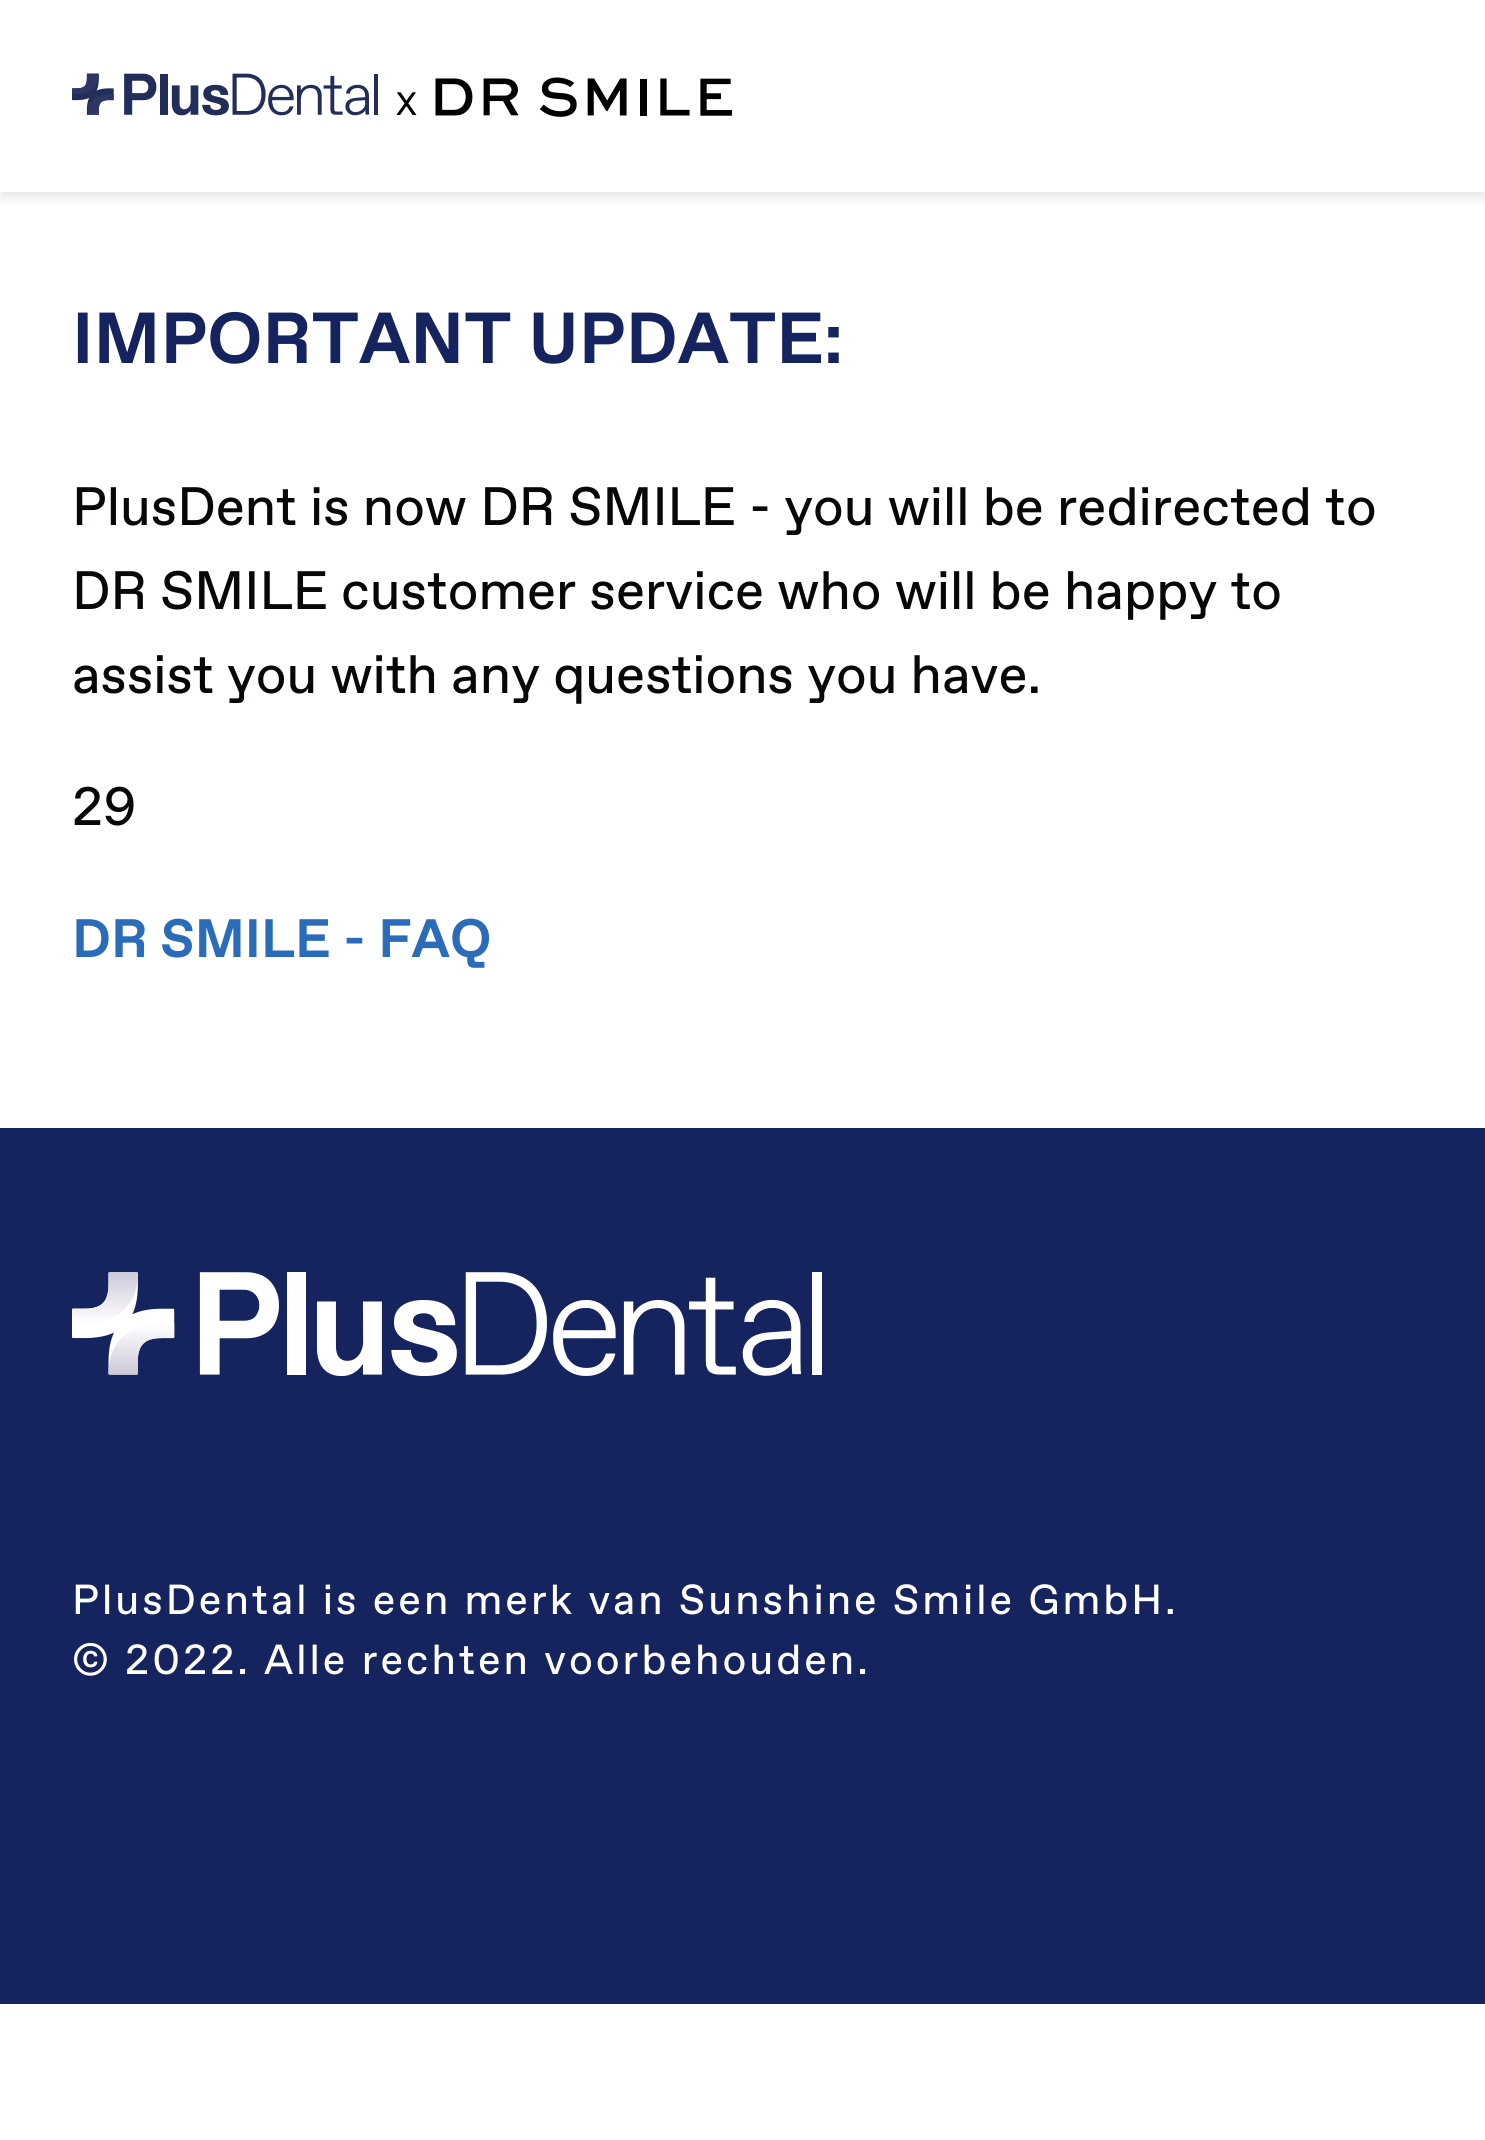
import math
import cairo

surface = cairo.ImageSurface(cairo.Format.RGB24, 1485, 2140)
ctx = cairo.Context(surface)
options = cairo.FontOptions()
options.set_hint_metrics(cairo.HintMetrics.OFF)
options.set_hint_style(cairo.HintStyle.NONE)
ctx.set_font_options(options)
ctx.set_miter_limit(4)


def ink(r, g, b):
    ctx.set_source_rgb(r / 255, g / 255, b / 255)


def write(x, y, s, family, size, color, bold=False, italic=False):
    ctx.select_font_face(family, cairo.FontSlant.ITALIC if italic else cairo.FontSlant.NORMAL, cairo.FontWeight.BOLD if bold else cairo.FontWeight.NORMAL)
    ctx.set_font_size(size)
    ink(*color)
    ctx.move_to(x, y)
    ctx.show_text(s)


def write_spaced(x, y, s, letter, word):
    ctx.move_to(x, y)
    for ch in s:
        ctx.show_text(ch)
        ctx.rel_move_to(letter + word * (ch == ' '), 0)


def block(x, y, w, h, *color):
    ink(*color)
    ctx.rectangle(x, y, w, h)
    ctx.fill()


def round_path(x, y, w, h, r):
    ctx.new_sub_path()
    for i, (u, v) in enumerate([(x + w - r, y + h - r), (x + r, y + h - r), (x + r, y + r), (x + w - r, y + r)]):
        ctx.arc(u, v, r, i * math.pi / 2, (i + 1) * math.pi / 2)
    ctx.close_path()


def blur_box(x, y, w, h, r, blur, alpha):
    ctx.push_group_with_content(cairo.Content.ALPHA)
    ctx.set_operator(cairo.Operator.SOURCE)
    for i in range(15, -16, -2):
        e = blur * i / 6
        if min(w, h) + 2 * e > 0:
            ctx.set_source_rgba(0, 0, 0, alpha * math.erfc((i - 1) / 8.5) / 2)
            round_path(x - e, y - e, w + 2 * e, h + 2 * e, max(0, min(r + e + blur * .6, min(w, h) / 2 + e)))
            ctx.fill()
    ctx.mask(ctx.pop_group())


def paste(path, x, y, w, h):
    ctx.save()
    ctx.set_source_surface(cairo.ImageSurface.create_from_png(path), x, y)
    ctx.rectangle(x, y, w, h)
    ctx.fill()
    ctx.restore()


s1 = dict(family="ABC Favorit", size=72, color=(21, 35, 94), bold=True)
s2 = dict(family="ABC Favorit", size=54, color=(5, 7, 9))
s3 = dict(family="ABC Favorit", size=54, color=(42, 107, 186), bold=True)

ink(255, 255, 255)
ctx.paint()
ctx.save()
ctx.rectangle(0, 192, 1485, 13)
ctx.clip()
ink(96, 97, 112)
blur_box(0, 6, 1485, 192, 0, 6, 0.16)
ctx.restore()
paste("pic1.png", 72, 73, 660, 44)
write(72, 363, "IMPORTANT UPDATE:", **s1)
write(72, 525, "PlusDent is now DR SMILE - you will be redirected to", **s2)
write(72, 609, "DR SMILE customer service who will be happy to", **s2)
write(72, 693, "assist you with any questions you have.", **s2)
write(72, 825, "29", **s2)
write(72, 957, "DR SMILE - FAQ", **s3)
block(0, 1128, 1485, 876, 21, 35, 94)
paste("pic2.png", 72, 1272, 750, 105)
ctx.select_font_face("ABC Favorit")
ctx.set_font_size(42)
ink(255, 255, 255)
write_spaced(72, 1614, "PlusDental is een merk van Sunshine Smile GmbH.", 3, 0)
write_spaced(72, 1674, "© 2022. Alle rechten voorbehouden.", 3, 0)
surface.write_to_png("screenshot.png")
